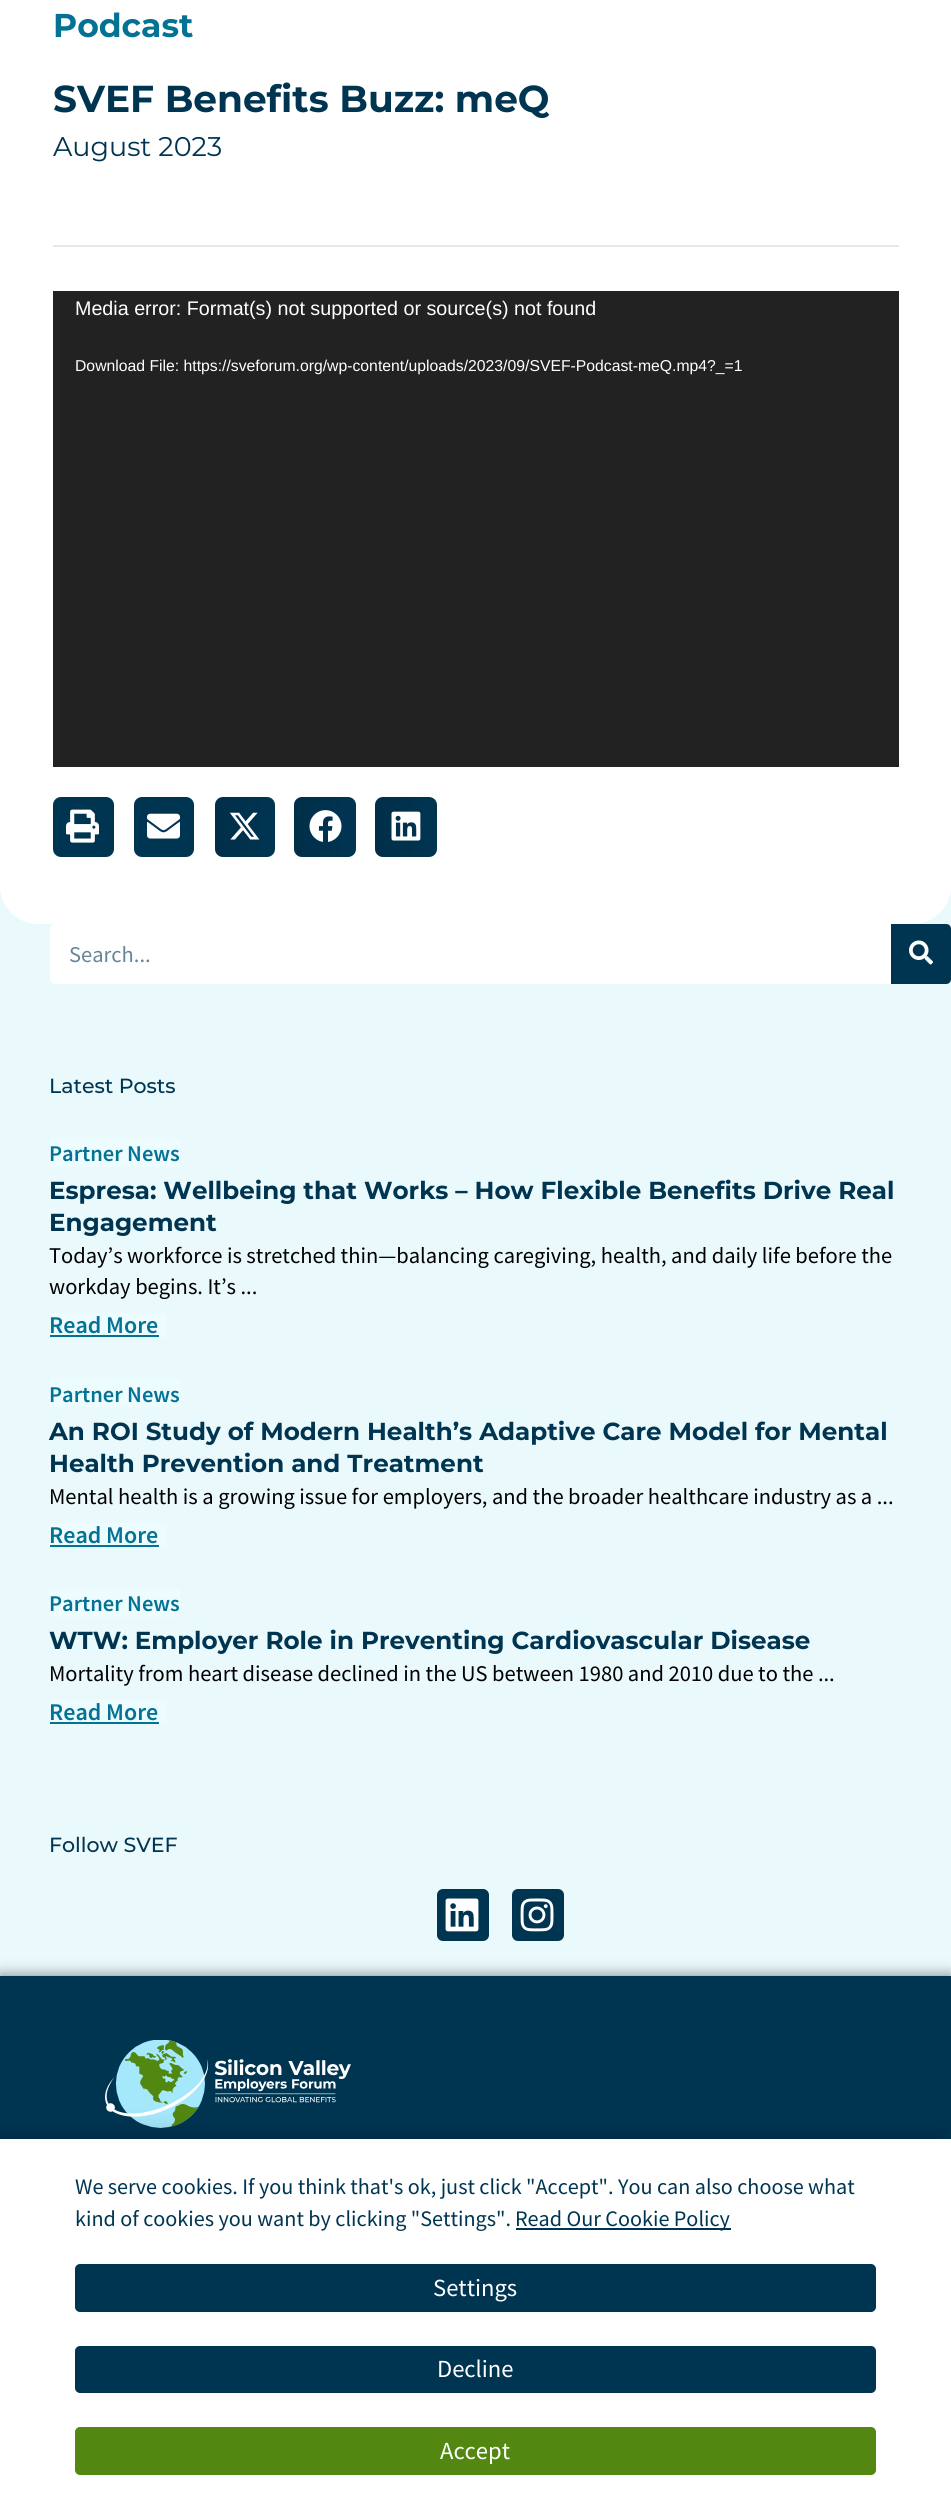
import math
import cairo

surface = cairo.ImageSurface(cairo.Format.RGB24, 951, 2517)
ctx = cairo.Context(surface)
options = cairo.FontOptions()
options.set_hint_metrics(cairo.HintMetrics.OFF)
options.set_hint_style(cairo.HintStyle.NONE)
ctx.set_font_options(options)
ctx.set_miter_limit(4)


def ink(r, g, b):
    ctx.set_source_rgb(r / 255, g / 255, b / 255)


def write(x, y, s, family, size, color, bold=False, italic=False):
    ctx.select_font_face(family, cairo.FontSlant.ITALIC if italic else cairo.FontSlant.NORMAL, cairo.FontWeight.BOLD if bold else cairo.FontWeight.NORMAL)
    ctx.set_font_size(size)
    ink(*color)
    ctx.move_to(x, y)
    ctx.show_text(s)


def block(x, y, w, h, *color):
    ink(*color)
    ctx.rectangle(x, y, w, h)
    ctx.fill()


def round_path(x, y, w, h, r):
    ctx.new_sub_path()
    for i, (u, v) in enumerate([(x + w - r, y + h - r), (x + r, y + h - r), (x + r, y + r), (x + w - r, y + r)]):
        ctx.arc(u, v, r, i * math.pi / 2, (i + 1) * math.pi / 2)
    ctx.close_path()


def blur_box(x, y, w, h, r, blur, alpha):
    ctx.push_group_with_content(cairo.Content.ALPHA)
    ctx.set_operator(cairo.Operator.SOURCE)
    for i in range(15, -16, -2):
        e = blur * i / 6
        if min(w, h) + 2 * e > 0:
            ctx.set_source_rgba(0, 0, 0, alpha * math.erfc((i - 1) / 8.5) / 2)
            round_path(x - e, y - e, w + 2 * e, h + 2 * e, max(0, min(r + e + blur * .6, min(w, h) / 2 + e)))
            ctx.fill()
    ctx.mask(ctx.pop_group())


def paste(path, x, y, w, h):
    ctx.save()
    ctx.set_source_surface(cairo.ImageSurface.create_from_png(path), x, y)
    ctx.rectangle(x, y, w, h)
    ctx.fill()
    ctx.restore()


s1 = dict(family="Montserrat", size=33, color=(3, 114, 148), bold=True)
s2 = dict(family="Montserrat", size=37.5, color=(0, 53, 82), bold=True)
s3 = dict(family="Montserrat", size=27, color=(0, 53, 82))
s4 = dict(family="Liberation Sans", size=19.7, color=(255, 255, 255))
s5 = dict(family="Liberation Sans", size=15.75, color=(255, 255, 255))
s6 = dict(family="Source Sans Pro", size=22.5, color=(102, 134, 151))
s7 = dict(family="Montserrat Medium", size=20.5, color=(0, 53, 82))
s8 = dict(family="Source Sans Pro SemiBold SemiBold", size=22.5, color=(3, 114, 148))
s9 = dict(family="Montserrat", size=24.6, color=(0, 53, 82), bold=True)
s10 = dict(family="Source Sans Pro", size=22.5, color=(0, 0, 0))
s11 = dict(family="Source Sans Pro SemiBold SemiBold", size=24, color=(3, 114, 148))
s12 = dict(family="Source Sans Pro", size=22.15, color=(0, 53, 82))
s13 = dict(family="Source Sans Pro", size=24.6, color=(255, 255, 255))

ink(234, 249, 252)
ctx.paint()
ink(255, 255, 255)
round_path(0, -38, 951, 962, 38)
ctx.fill()
write(53, 37, "Podcast", **s1)
write(53, 112, "SVEF Benefits Buzz: meQ", **s2)
write(53, 156, "August 2023", **s3)
block(53, 245, 846, 2, 232, 232, 232)
block(53, 291, 846, 476, 34, 34, 34)
write(75, 315, "Media error: Format(s) not supported or source(s) not found", **s4)
write(75, 371, "Download File: https://sveforum.org/wp-content/uploads/2023/09/SVEF-Podcast-meQ.mp4?_=1", **s5)
ink(0, 53, 82)
round_path(53, 797, 61, 60, 8)
ctx.fill()
paste("pic1.png", 66, 809, 33, 34)
round_path(134, 797, 60, 60, 8)
ctx.fill()
paste("pic2.png", 147, 813, 33, 26)
round_path(215, 797, 60, 60, 8)
ctx.fill()
gradient = cairo.LinearGradient(215, 797, 275, 797)
gradient.add_color_stop_rgba(0, 0, 0, 0, 0.12)
gradient.add_color_stop_rgba(1, 0, 0, 0, 0)
ctx.set_source(gradient)
round_path(215, 797, 60, 60, 8)
ctx.fill()
paste("pic3.png", 229, 812, 31, 28)
ink(0, 53, 82)
round_path(294, 797, 62, 60, 8)
ctx.fill()
gradient = cairo.LinearGradient(294, 797, 356, 797)
gradient.add_color_stop_rgba(0, 0, 0, 0, 0.12)
gradient.add_color_stop_rgba(1, 0, 0, 0, 0)
ctx.set_source(gradient)
round_path(294, 797, 62, 60, 8)
ctx.fill()
paste("pic4.png", 309, 810, 33, 32)
ink(0, 53, 82)
round_path(375, 797, 62, 60, 8)
ctx.fill()
gradient = cairo.LinearGradient(375, 797, 437, 797)
gradient.add_color_stop_rgba(0, 0, 0, 0, 0.12)
gradient.add_color_stop_rgba(1, 0, 0, 0, 0)
ctx.set_source(gradient)
round_path(375, 797, 62, 60, 8)
ctx.fill()
paste("pic5.png", 391, 811, 30, 30)
ink(255, 255, 255)
round_path(50, 924, 901, 60, 5)
ctx.fill()
write(69, 962, "Search...", **s6)
ink(0, 53, 82)
ctx.new_path()
ctx.move_to(891, 924)
ctx.line_to(946, 924)
ctx.curve_to(949, 924, 951, 926, 951, 929)
ctx.line_to(951, 979)
ctx.curve_to(951, 982, 949, 984, 946, 984)
ctx.line_to(891, 984)
ctx.close_path()
ctx.fill()
paste("pic6.png", 909, 940, 24, 25)
write(49, 1093, "Latest Posts", **s7)
block(50, 1139, 130, 28, 237, 252, 255)
write(49, 1161, "Partner News", **s8)
write(49, 1199, "Espresa: Wellbeing that Works – How Flexible Benefits Drive Real", **s9)
write(49, 1231, "Engagement", **s9)
write(49, 1263, "Today’s workforce is stretched thin—balancing caregiving, health, and daily life before the", **s10)
write(49, 1294, "workday begins. It’s ...", **s10)
block(50, 1313, 117, 24, 237, 252, 255)
write(49, 1333, "Read More", **s11)
block(50, 1335, 109, 2, 3, 114, 148)
block(50, 1379, 130, 28, 237, 252, 255)
write(49, 1402, "Partner News", **s8)
write(49, 1440, "An ROI Study of Modern Health’s Adaptive Care Model for Mental", **s9)
write(49, 1472, "Health Prevention and Treatment", **s9)
write(49, 1504, "Mental health is a growing issue for employers, and the broader healthcare industry as a ...", **s10)
block(50, 1523, 117, 24, 237, 252, 255)
write(49, 1543, "Read More", **s11)
block(50, 1545, 109, 2, 3, 114, 148)
block(50, 1589, 130, 28, 237, 252, 255)
write(49, 1611, "Partner News", **s8)
write(49, 1649, "WTW: Employer Role in Preventing Cardiovascular Disease", **s9)
write(49, 1681, "Mortality from heart disease declined in the US between 1980 and 2010 due to the ...", **s10)
block(50, 1700, 117, 24, 237, 252, 255)
write(49, 1720, "Read More", **s11)
block(50, 1722, 109, 2, 3, 114, 148)
write(49, 1852, "Follow SVEF", **s7)
round_path(437, 1889, 52, 52, 6)
ctx.fill()
paste("pic7.png", 445, 1898, 34, 34)
round_path(512, 1889, 52, 52, 6)
ctx.fill()
paste("pic8.png", 520, 1898, 34, 34)
ink(0, 0, 0)
blur_box(0, 1976, 951, 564, 0, 7.5, 0.5)
block(0, 1976, 951, 163, 0, 53, 82)
paste("pic9.png", 105, 2040, 246, 88)
ink(0, 0, 0)
blur_box(-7, 2132, 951, 378, 0, 11, 0.2)
block(0, 2139, 951, 378, 255, 255, 255)
write(75, 2194, "We serve cookies. If you think that's ok, just click \"Accept\". You can also choose what", **s12)
write(75, 2226, "kind of cookies you want by clicking \"Settings\".", **s12)
block(516, 2228, 215, 2, 0, 53, 82)
write(515, 2226, "Read Our Cookie Policy", **s12)
round_path(76, 2265, 799, 46, 4)
ctx.fill_preserve()
ctx.stroke()
write(433, 2296, "Settings", **s13)
ink(0, 53, 82)
round_path(76, 2347, 799, 45, 4)
ctx.fill_preserve()
ctx.stroke()
write(437, 2377, "Decline", **s13)
ink(82, 136, 17)
round_path(76, 2428, 799, 46, 4)
ctx.fill_preserve()
ctx.stroke()
write(440, 2459, "Accept", **s13)
surface.write_to_png("screenshot.png")
